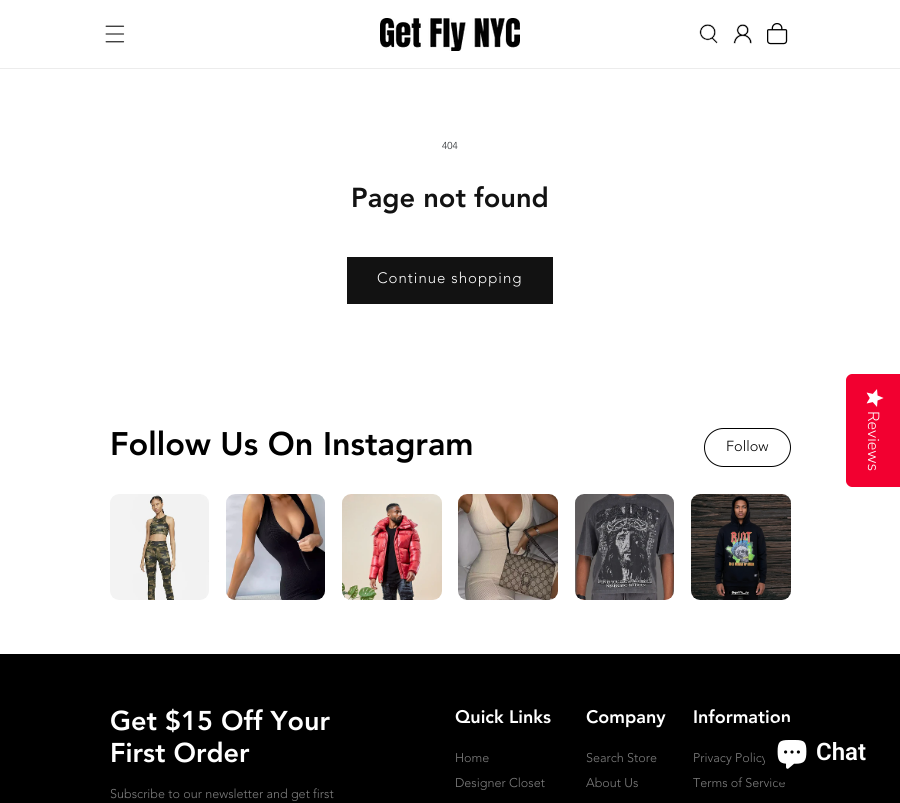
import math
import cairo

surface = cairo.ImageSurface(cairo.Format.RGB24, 900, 803)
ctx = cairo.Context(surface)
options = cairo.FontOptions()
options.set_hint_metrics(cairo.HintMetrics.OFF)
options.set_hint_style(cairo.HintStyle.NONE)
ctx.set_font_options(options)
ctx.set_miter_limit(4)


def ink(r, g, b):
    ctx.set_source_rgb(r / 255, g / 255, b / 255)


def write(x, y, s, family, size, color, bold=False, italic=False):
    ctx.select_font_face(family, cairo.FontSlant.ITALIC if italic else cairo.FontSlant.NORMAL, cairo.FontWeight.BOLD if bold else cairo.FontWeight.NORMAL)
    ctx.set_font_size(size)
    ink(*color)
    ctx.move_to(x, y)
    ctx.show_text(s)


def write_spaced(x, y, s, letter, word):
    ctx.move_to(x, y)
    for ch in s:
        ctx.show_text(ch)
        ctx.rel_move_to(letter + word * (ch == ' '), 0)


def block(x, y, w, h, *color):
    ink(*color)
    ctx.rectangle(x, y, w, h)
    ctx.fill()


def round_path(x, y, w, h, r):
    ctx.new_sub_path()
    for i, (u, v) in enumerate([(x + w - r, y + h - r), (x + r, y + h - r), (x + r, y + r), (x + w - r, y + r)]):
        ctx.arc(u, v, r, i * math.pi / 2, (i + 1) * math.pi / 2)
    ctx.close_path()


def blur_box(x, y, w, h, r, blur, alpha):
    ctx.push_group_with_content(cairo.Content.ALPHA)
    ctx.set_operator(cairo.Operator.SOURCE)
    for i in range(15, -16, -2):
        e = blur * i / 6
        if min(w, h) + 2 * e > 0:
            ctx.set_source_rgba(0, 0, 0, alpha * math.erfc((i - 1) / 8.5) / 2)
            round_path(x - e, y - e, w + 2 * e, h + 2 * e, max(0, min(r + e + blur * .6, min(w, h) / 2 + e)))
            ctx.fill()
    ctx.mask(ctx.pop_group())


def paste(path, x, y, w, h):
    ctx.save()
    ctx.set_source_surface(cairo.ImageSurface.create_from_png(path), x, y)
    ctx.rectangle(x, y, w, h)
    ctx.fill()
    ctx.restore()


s1 = dict(family="Avenir Light", size=10, color=(33, 37, 41))
s2 = dict(family="Avenir Black", size=27.25, color=(18, 18, 18))
s3 = dict(family="Avenir Black", size=32.4, color=(0, 0, 0))
s4 = dict(family="Avenir Light", size=14.5, color=(0, 0, 0))
s5 = dict(family="Nunito Sans Light", size=16, color=(255, 255, 255))
s6 = dict(family="Avenir Black", size=27, color=(255, 255, 255))
s7 = dict(family="Avenir Light", size=12.6, color=(128, 128, 128))
s8 = dict(family="Avenir Black", size=18, color=(255, 255, 255))
s9 = dict(family="Roboto SemiBold", size=24, color=(255, 255, 255))

ink(255, 255, 255)
ctx.paint()
block(0, 68, 900, 1, 236, 236, 236)
paste("pic1.png", 105, 25, 20, 18)
paste("pic2.png", 380, 18, 140, 33)
paste("pic3.png", 699, 24, 19, 20)
paste("pic4.png", 733, 24, 19, 20)
paste("pic5.png", 767, 23, 21, 22)
write(442, 149, "404", **s1)
write(351, 207, "Page not found", **s2)
block(347, 257, 206, 47, 18, 18, 18)
ctx.select_font_face("Avenir Light")
ctx.set_font_size(15)
ink(255, 255, 255)
write_spaced(377, 283, "Continue shopping", 1, 0)
write(110, 455, "Follow Us On Instagram", **s3)
round_path(704.5, 428.5, 86, 38, 19)
ctx.set_line_width(1)
ctx.stroke()
write(726, 451, "Follow", **s4)
paste("pic6.png", 110, 494, 99, 106)
paste("pic7.png", 226, 494, 99, 106)
paste("pic8.png", 342, 494, 100, 106)
paste("pic9.png", 458, 494, 100, 106)
paste("pic10.png", 575, 494, 99, 106)
paste("pic11.png", 691, 494, 100, 106)
ink(242, 0, 48)
ctx.new_path()
ctx.move_to(900, 374)
ctx.line_to(900, 487)
ctx.line_to(852, 487)
ctx.curve_to(849, 487, 846, 484, 846, 481)
ctx.line_to(846, 380)
ctx.curve_to(846, 377, 849, 374, 852, 374)
ctx.close_path()
ctx.fill()
paste("pic12.png", 866, 389, 18, 18)
ctx.save()
ctx.translate(868, 411)
ctx.rotate(90 * math.pi / 180)
write(0, 0, "Reviews", **s5)
ctx.restore()
block(0, 654, 900, 149, 0, 0, 0)
write(110, 730, "Get $15 Off Your", **s6)
write(110, 762, "First Order", **s6)
write(110, 798, "Subscribe to our newsletter and get first", **s7)
write(455, 723, "Quick Links", **s8)
write(455, 762, "Home", **s7)
write(455, 787, "Designer Closet", **s7)
write(586, 723, "Company", **s8)
write(586, 762, "Search Store", **s7)
write(586, 787, "About Us", **s7)
write(693, 723, "Information", **s8)
write(693, 762, "Privacy Policy", **s7)
write(693, 787, "Terms of Service", **s7)
ink(0, 0, 0)
blur_box(765, 722, 113, 60, 16, 2.5, 0.15)
ink(0, 0, 0)
round_path(765, 722, 113, 60, 16)
ctx.fill()
paste("pic13.png", 777, 740, 30, 29)
write(816, 760, "Chat", **s9)
surface.write_to_png("screenshot.png")
